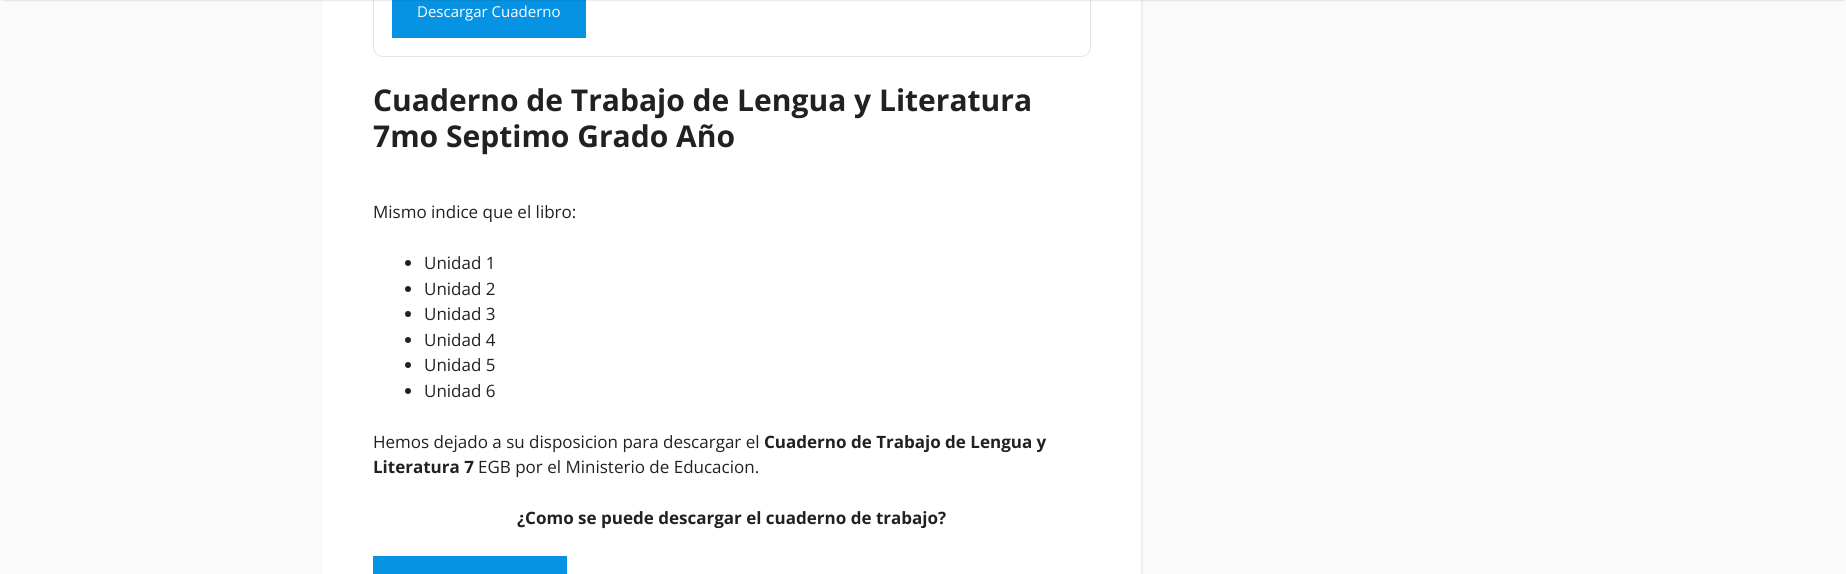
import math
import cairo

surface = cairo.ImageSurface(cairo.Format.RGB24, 1846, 574)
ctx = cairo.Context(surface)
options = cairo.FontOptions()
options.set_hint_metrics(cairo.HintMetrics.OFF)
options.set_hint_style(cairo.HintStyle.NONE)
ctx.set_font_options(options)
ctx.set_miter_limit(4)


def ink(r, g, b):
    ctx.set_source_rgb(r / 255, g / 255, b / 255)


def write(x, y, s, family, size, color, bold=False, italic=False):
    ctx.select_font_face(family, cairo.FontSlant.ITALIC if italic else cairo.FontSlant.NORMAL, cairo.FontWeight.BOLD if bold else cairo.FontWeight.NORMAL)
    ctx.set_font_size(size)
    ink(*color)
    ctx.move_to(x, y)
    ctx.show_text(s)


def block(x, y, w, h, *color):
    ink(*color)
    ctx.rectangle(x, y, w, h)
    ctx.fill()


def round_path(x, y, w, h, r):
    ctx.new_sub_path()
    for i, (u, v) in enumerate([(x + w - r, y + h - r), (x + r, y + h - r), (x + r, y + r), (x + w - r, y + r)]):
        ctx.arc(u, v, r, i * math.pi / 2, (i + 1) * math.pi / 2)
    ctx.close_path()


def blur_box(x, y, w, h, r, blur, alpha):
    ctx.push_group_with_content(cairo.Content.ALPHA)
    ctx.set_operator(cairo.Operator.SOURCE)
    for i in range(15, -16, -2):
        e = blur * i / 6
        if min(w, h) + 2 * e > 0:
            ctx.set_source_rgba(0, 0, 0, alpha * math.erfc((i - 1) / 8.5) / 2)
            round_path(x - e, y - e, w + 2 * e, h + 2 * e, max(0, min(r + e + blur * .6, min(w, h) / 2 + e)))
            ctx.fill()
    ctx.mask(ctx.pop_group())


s1 = dict(family="Open Sans", size=15, color=(255, 255, 255))
s2 = dict(family="Open Sans", size=30, color=(33, 33, 33), bold=True)
s3 = dict(family="Open Sans", size=17, color=(33, 33, 33))
s4 = dict(family="Open Sans", size=17, color=(33, 33, 33), bold=True)

ink(250, 250, 250)
ctx.paint()
block(323, 0, 818, 574, 255, 255, 255)
ink(237, 237, 237)
ctx.new_path()
ctx.move_to(1143, -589)
ctx.line_to(1143, 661)
ctx.line_to(1141, 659)
ctx.line_to(1141, -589)
ctx.close_path()
ctx.fill()
round_path(373.5, -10.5, 717, 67, 9.5)
ink(229, 229, 229)
ctx.set_line_width(1)
ctx.stroke()
ink(255, 255, 255)
round_path(374, -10, 716, 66, 10)
ctx.fill()
block(392, 0, 194, 38, 6, 147, 227)
ink(0, 0, 0)
blur_box(2, -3, 1842, 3, 0, 1, 0.2)
write(417, 17, "Descargar Cuaderno", **s1)
write(373, 111, "Cuaderno de Trabajo de Lengua y Literatura", **s2)
write(373, 147, "7mo Septimo Grado Año", **s2)
write(373, 218, "Mismo indice que el libro:", **s3)
ctx.new_path()
ctx.arc(408, 263, 3, 0, 2 * math.pi)
ctx.fill()
write(424, 269, "Unidad 1", **s3)
ctx.new_path()
ctx.arc(408, 289, 3, 0, 2 * math.pi)
ctx.fill()
write(424, 295, "Unidad 2", **s3)
ctx.new_path()
ctx.arc(408, 314, 3, 0, 2 * math.pi)
ctx.fill()
write(424, 320, "Unidad 3", **s3)
ctx.new_path()
ctx.arc(408, 340, 3, 0, 2 * math.pi)
ctx.fill()
write(424, 346, "Unidad 4", **s3)
ctx.new_path()
ctx.arc(408, 365, 3, 0, 2 * math.pi)
ctx.fill()
write(424, 371, "Unidad 5", **s3)
ctx.new_path()
ctx.arc(408, 391, 3, 0, 2 * math.pi)
ctx.fill()
write(424, 397, "Unidad 6", **s3)
write(373, 448, "Hemos dejado a su disposicion para descargar el", **s3)
write(764, 448, "Cuaderno de Trabajo de Lengua y", **s4)
write(373, 473, "Literatura 7", **s4)
write(478, 473, "EGB por el Ministerio de Educacion.", **s3)
write(517, 524, "¿Como se puede descargar el cuaderno de trabajo?", **s4)
block(373, 556, 194, 18, 6, 147, 227)
surface.write_to_png("screenshot.png")
